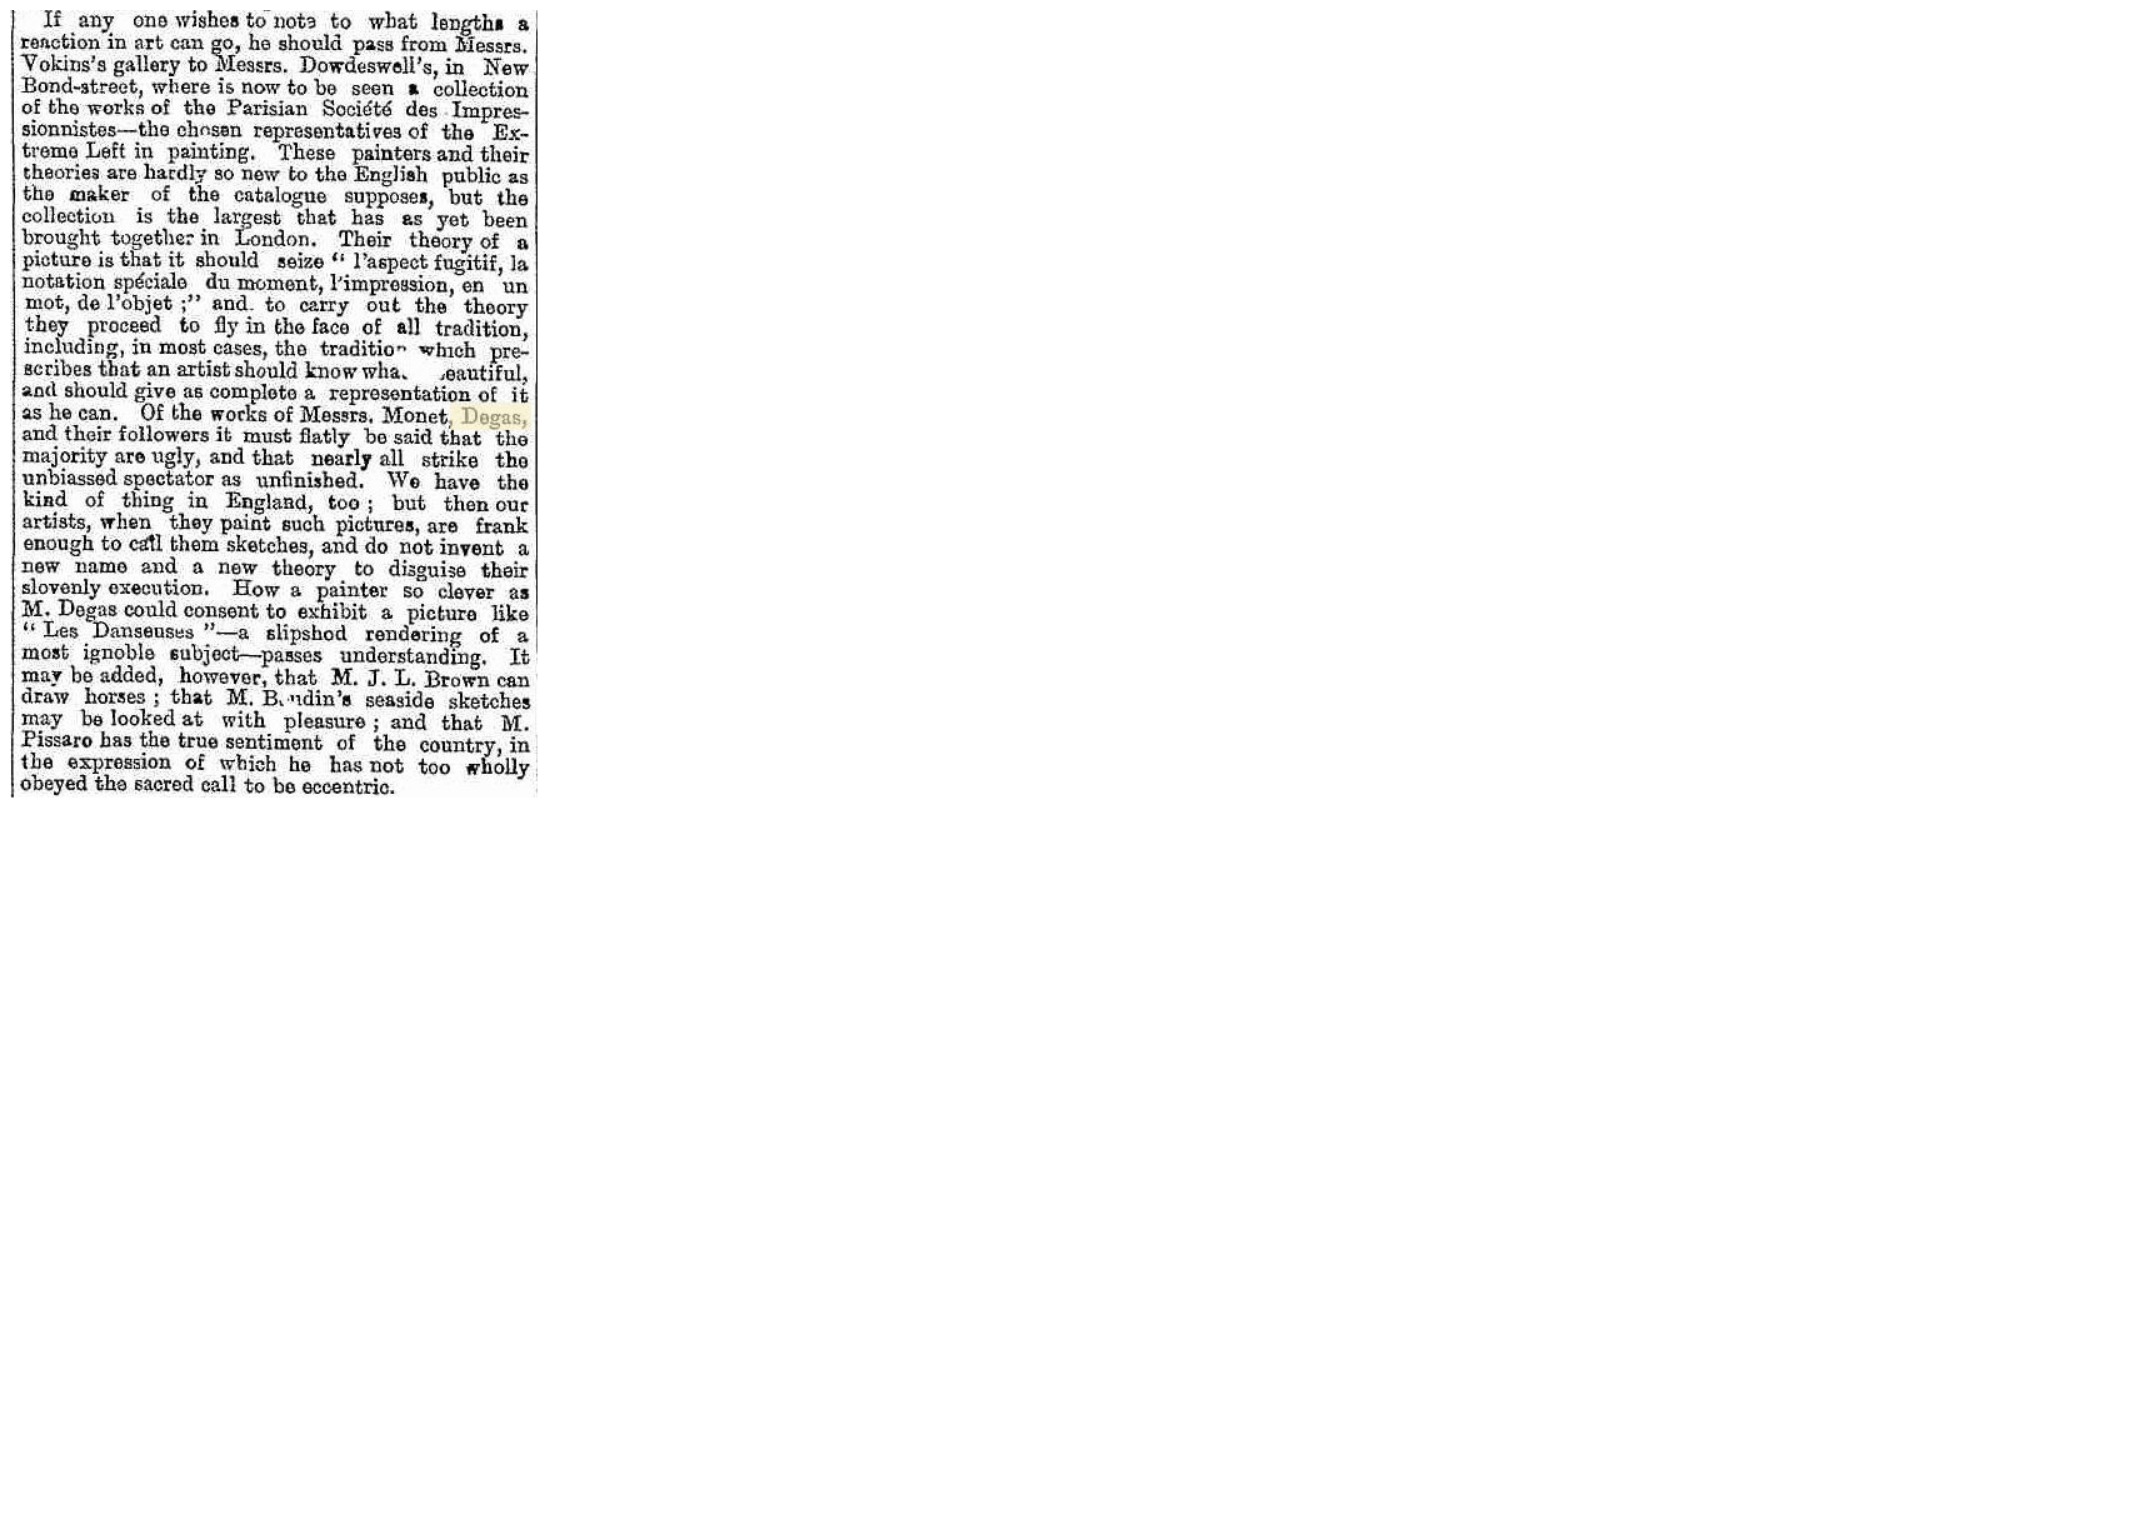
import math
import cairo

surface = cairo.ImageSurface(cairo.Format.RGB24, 2133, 1537)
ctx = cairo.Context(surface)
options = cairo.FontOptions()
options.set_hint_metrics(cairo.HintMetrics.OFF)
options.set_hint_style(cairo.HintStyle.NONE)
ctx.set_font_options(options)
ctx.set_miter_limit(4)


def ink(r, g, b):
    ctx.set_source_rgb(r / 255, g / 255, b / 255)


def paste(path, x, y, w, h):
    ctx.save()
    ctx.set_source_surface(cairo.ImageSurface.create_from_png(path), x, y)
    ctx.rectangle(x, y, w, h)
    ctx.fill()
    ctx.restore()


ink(255, 255, 255)
ctx.paint()
paste("pic1.png", 10, 10, 528, 788)
surface.write_to_png("screenshot.png")
